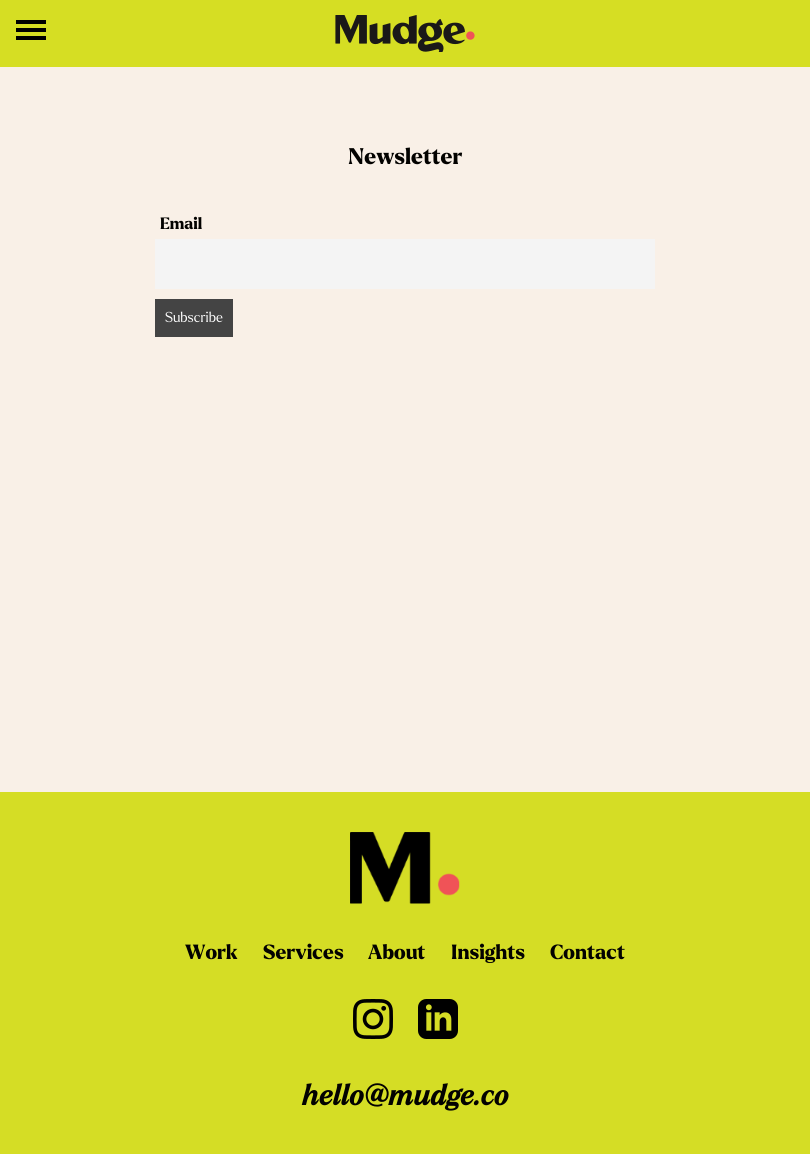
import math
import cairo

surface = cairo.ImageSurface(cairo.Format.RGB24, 810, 1154)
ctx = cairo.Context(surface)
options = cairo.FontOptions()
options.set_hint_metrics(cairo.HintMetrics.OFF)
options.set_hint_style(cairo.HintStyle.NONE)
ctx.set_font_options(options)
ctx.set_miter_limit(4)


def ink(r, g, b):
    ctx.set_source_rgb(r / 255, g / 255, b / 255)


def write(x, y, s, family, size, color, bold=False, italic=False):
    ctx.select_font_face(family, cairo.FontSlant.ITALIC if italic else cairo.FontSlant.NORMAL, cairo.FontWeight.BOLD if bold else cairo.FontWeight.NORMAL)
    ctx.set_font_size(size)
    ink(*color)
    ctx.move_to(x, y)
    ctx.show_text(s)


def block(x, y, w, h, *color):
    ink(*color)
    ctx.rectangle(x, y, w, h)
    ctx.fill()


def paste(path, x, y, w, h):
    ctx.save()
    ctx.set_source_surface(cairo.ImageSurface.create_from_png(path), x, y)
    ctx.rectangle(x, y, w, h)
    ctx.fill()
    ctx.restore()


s1 = dict(family="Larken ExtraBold", size=22, color=(3, 2, 0))
s2 = dict(family="Larken ExtraBold", size=16, color=(3, 2, 0))
s3 = dict(family="Larken Light", size=14, color=(255, 255, 255))
s4 = dict(family="Larken ExtraBold", size=20, color=(3, 2, 0))
s5 = dict(family="Larken", size=28, color=(3, 2, 0), bold=True, italic=True)

ink(249, 240, 231)
ctx.paint()
block(0, 0, 810, 67, 214, 222, 35)
block(16, 28, 30, 4, 0, 0, 0)
block(16, 20, 30, 4, 0, 0, 0)
block(16, 36, 30, 4, 0, 0, 0)
paste("pic1.png", 335, 15, 140, 37)
write(348, 164, "Newsletter", **s1)
write(160, 229, "Email", **s2)
block(155, 239, 500, 50, 244, 244, 244)
block(155, 299, 78, 38, 68, 68, 68)
write(165, 322, "Subscribe", **s3)
block(0, 792, 810, 362, 213, 221, 37)
paste("pic2.png", 350, 832, 110, 72)
write(185, 959, "Work", **s4)
write(263, 959, "Services", **s4)
write(368, 959, "About", **s4)
write(451, 959, "Insights", **s4)
write(550, 959, "Contact", **s4)
paste("pic3.png", 353, 999, 40, 40)
paste("pic4.png", 418, 999, 40, 40)
write(302, 1105, "hello@mudge.co", **s5)
surface.write_to_png("screenshot.png")
